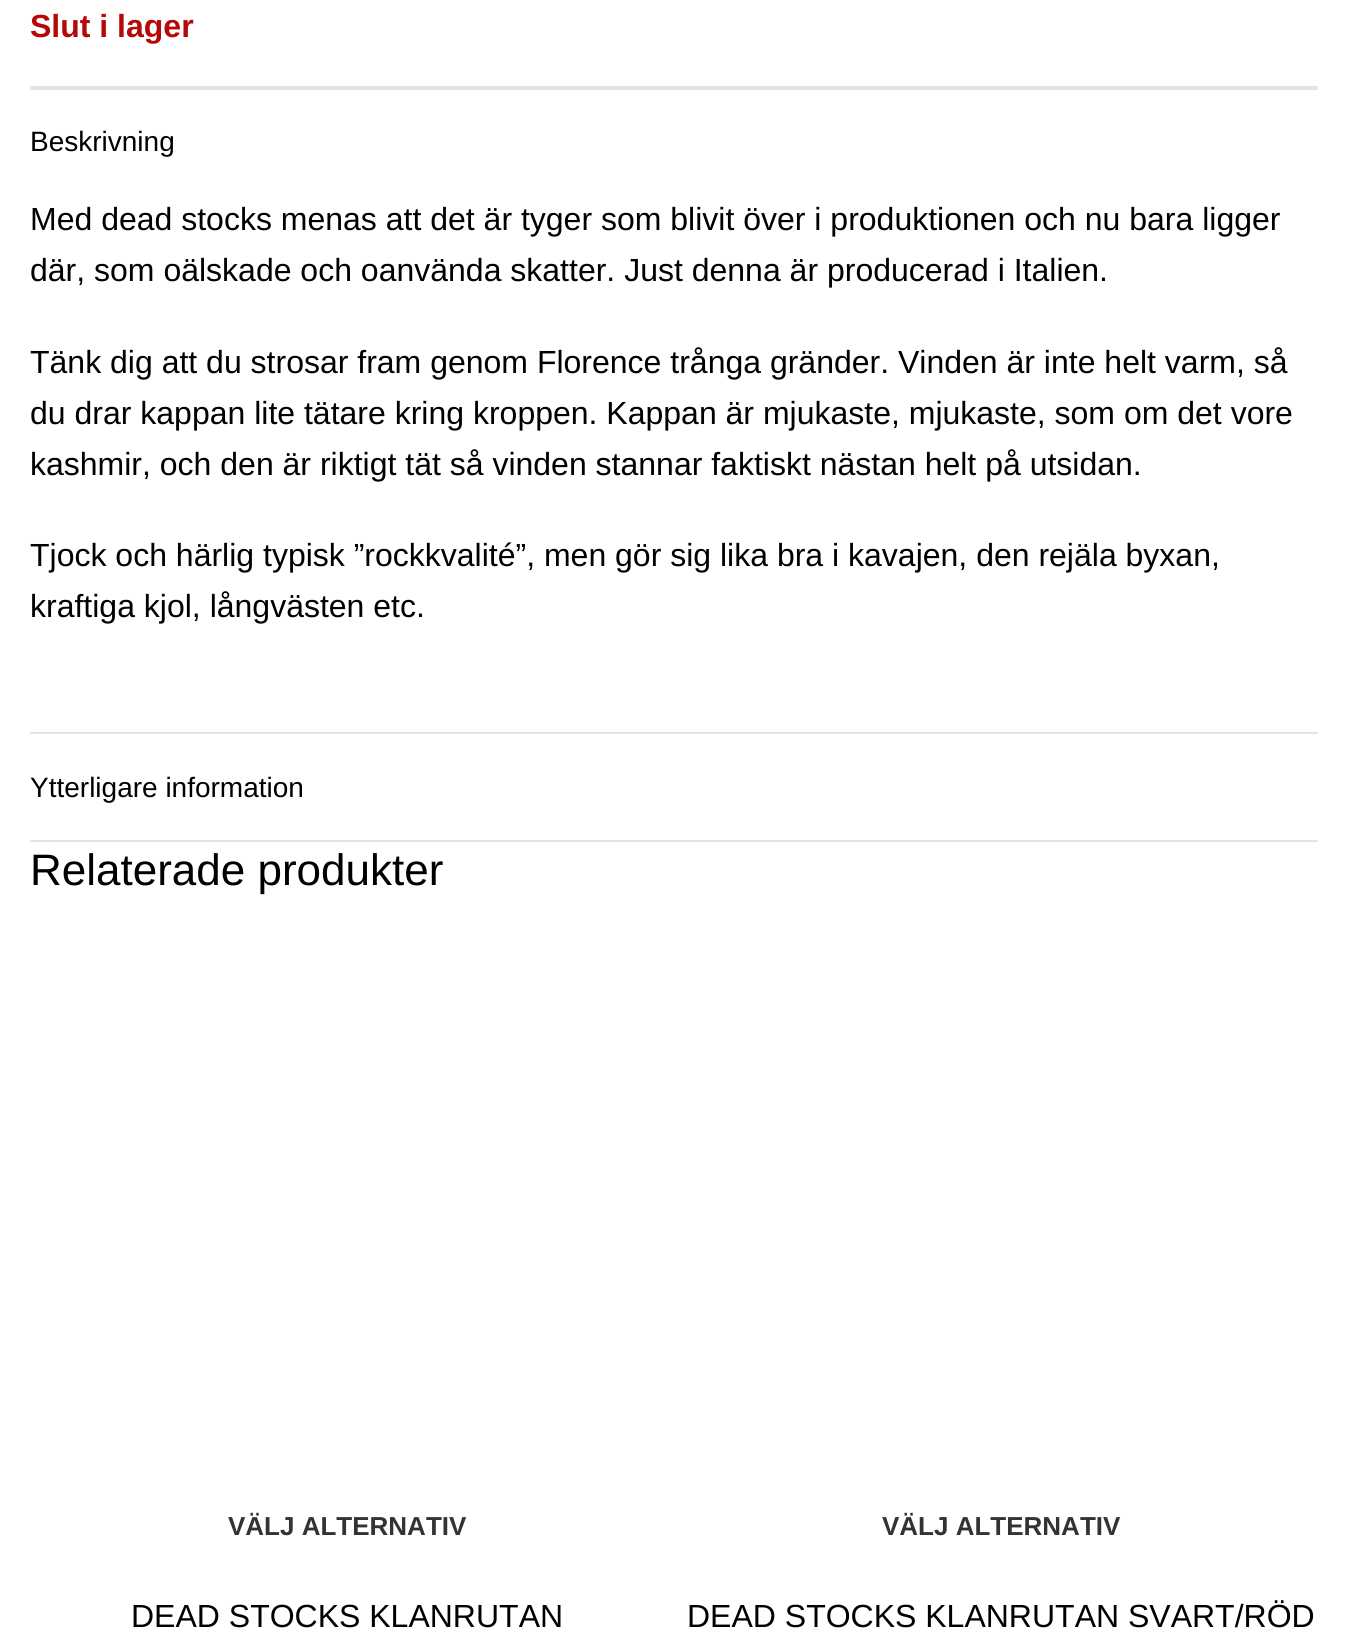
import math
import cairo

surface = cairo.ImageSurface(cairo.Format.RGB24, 1348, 1651)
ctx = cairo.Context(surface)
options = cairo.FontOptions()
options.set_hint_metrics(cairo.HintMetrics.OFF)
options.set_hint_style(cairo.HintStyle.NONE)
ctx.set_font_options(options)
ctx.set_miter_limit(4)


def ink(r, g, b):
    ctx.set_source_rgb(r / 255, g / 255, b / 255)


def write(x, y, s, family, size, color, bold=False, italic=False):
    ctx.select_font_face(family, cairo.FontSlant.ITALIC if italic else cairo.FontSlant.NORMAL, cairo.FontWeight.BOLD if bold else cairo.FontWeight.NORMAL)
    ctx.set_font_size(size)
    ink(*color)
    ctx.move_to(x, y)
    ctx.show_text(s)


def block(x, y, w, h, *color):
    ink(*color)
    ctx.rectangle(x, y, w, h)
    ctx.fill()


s1 = dict(family="Liberation Sans", size=32, color=(181, 8, 8), bold=True)
s2 = dict(family="Liberation Sans", size=28, color=(0, 0, 0))
s3 = dict(family="Liberation Sans", size=32, color=(0, 0, 0))
s4 = dict(family="Liberation Sans", size=44, color=(0, 0, 0))
s5 = dict(family="Liberation Sans", size=26, color=(51, 51, 51), bold=True)

ink(255, 255, 255)
ctx.paint()
write(30, 37, "Slut i lager", **s1)
block(30, 86, 1288, 4, 228, 228, 228)
block(30, 732, 1288, 2, 228, 228, 228)
write(30, 151, "Beskrivning", **s2)
write(30, 230, "Med dead stocks menas att det är tyger som blivit över i produktionen och nu bara ligger", **s3)
write(30, 281, "där, som oälskade och oanvända skatter. Just denna är producerad i Italien.", **s3)
write(30, 373, "Tänk dig att du strosar fram genom Florence trånga gränder. Vinden är inte helt varm, så", **s3)
write(30, 424, "du drar kappan lite tätare kring kroppen. Kappan är mjukaste, mjukaste, som om det vore", **s3)
write(30, 475, "kashmir, och den är riktigt tät så vinden stannar faktiskt nästan helt på utsidan.", **s3)
write(30, 566, "Tjock och härlig typisk ”rockkvalité”, men gör sig lika bra i kavajen, den rejäla byxan,", **s3)
write(30, 617, "kraftiga kjol, långvästen etc.", **s3)
block(30, 840, 1288, 2, 228, 228, 228)
write(30, 797, "Ytterligare information", **s2)
write(30, 885, "Relaterade produkter", **s4)
write(228, 1535, "VÄLJ ALTERNATIV", **s5)
write(131, 1627, "DEAD STOCKS KLANRUTAN", **s3)
write(882, 1535, "VÄLJ ALTERNATIV", **s5)
write(687, 1627, "DEAD STOCKS KLANRUTAN SVART/RÖD", **s3)
surface.write_to_png("screenshot.png")
